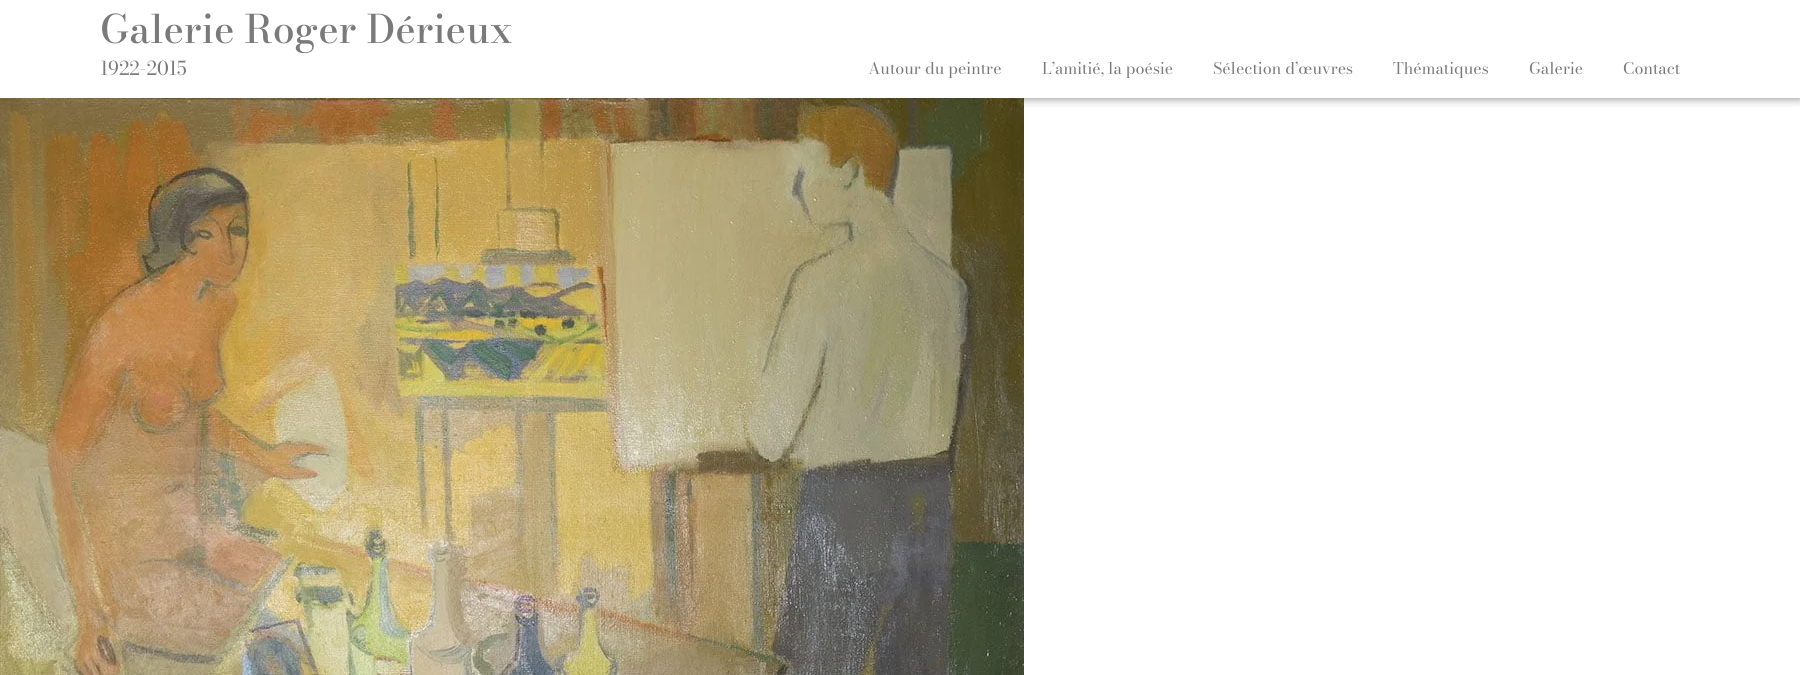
import math
import cairo

surface = cairo.ImageSurface(cairo.Format.RGB24, 1800, 675)
ctx = cairo.Context(surface)
options = cairo.FontOptions()
options.set_hint_metrics(cairo.HintMetrics.OFF)
options.set_hint_style(cairo.HintStyle.NONE)
ctx.set_font_options(options)
ctx.set_miter_limit(4)


def ink(r, g, b):
    ctx.set_source_rgb(r / 255, g / 255, b / 255)


def write(x, y, s, family, size, color, bold=False, italic=False):
    ctx.select_font_face(family, cairo.FontSlant.ITALIC if italic else cairo.FontSlant.NORMAL, cairo.FontWeight.BOLD if bold else cairo.FontWeight.NORMAL)
    ctx.set_font_size(size)
    ink(*color)
    ctx.move_to(x, y)
    ctx.show_text(s)


def round_path(x, y, w, h, r):
    ctx.new_sub_path()
    for i, (u, v) in enumerate([(x + w - r, y + h - r), (x + r, y + h - r), (x + r, y + r), (x + w - r, y + r)]):
        ctx.arc(u, v, r, i * math.pi / 2, (i + 1) * math.pi / 2)
    ctx.close_path()


def blur_box(x, y, w, h, r, blur, alpha):
    ctx.push_group_with_content(cairo.Content.ALPHA)
    ctx.set_operator(cairo.Operator.SOURCE)
    for i in range(15, -16, -2):
        e = blur * i / 6
        if min(w, h) + 2 * e > 0:
            ctx.set_source_rgba(0, 0, 0, alpha * math.erfc((i - 1) / 8.5) / 2)
            round_path(x - e, y - e, w + 2 * e, h + 2 * e, max(0, min(r + e + blur * .6, min(w, h) / 2 + e)))
            ctx.fill()
    ctx.mask(ctx.pop_group())


def paste(path, x, y, w, h):
    ctx.save()
    ctx.set_source_surface(cairo.ImageSurface.create_from_png(path), x, y)
    ctx.rectangle(x, y, w, h)
    ctx.fill()
    ctx.restore()


s1 = dict(family="Bodoni Moda Medium", size=39, color=(122, 122, 122))
s2 = dict(family="Bodoni Moda", size=19, color=(122, 122, 122))
s3 = dict(family="Bodoni Moda", size=16, color=(122, 122, 122))

ink(255, 255, 255)
ctx.paint()
ctx.save()
ctx.rectangle(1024, 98, 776, 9)
ctx.clip()
ink(0, 0, 0)
blur_box(0, 0, 1800, 98, 0, 5, 0.5)
ctx.restore()
write(100, 43, "Galerie Roger Dérieux", **s1)
write(100, 75, "1922-2015", **s2)
write(868, 74, "Autour du peintre", **s3)
write(1042, 74, "L’amitié, la poésie", **s3)
write(1213, 74, "Sélection d’œuvres", **s3)
write(1393, 74, "Thématiques", **s3)
write(1529, 74, "Galerie", **s3)
write(1623, 74, "Contact", **s3)
paste("pic1.png", 0, 98, 1024, 577)
surface.write_to_png("screenshot.png")
